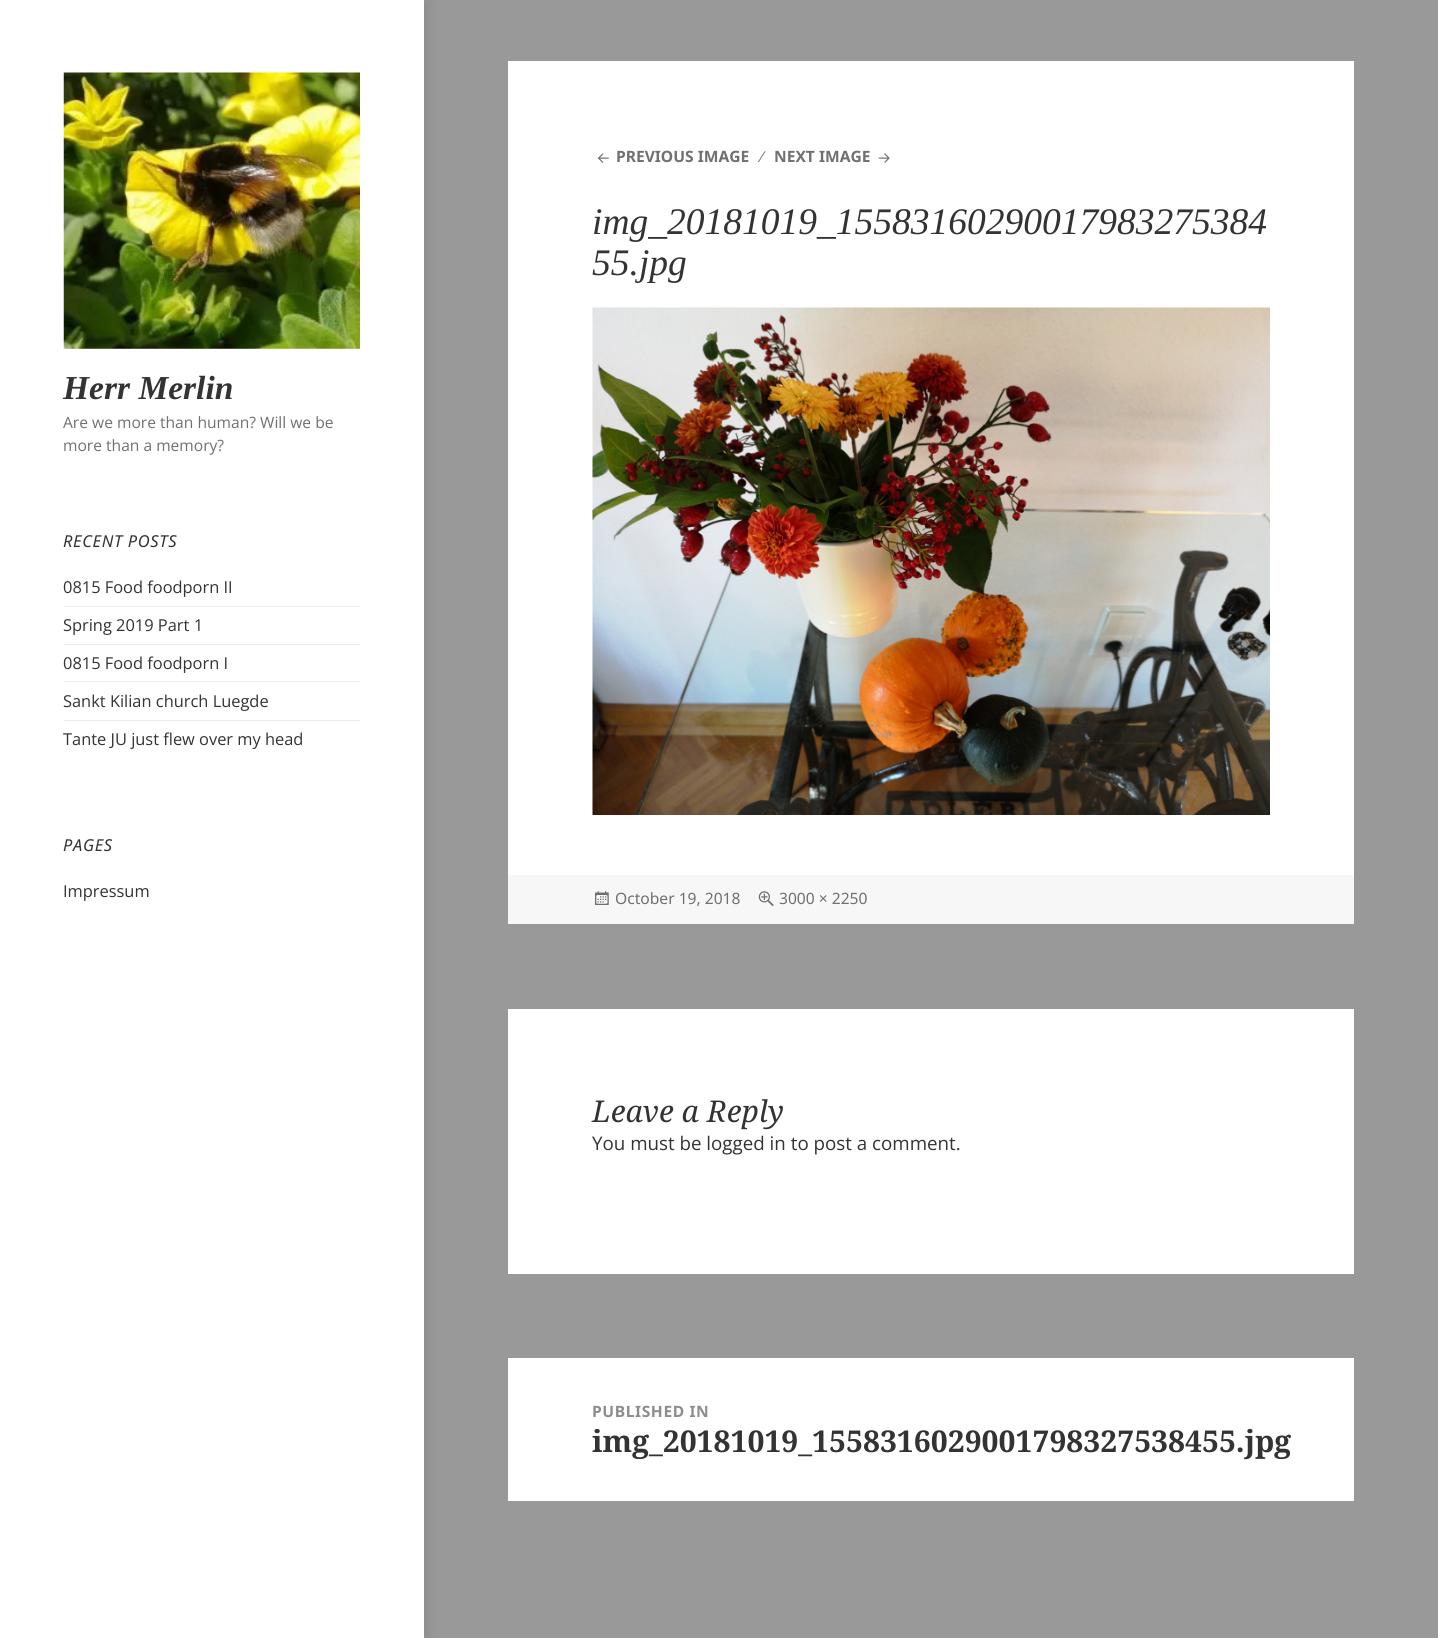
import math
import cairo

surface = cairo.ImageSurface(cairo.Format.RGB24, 1438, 1638)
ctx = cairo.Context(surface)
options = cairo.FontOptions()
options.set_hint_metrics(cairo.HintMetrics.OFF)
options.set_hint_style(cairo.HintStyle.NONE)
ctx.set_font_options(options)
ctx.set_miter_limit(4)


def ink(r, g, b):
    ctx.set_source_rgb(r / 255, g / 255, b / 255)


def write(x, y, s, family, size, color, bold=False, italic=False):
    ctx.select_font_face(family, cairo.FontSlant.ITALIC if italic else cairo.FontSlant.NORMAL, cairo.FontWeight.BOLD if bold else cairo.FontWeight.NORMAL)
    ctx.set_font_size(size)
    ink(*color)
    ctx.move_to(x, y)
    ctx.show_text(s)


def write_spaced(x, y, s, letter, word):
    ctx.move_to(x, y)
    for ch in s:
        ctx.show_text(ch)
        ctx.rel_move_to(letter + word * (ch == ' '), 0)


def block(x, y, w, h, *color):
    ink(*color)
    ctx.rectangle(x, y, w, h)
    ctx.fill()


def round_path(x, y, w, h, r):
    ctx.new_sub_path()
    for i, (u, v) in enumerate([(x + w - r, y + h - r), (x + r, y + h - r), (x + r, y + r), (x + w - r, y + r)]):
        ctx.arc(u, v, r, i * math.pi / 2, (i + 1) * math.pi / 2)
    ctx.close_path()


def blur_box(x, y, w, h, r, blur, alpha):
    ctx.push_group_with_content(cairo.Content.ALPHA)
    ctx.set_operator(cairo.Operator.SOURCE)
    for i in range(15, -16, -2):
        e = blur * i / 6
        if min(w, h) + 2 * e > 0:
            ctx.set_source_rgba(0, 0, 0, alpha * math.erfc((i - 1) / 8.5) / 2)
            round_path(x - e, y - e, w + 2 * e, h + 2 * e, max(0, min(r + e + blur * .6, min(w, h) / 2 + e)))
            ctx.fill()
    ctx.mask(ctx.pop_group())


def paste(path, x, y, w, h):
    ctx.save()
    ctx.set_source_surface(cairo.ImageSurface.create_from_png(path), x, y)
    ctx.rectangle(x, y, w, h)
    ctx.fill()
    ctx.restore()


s1 = dict(family="Liberation Serif", size=33.5, color=(51, 51, 51), bold=True, italic=True)
s2 = dict(family="Open Sans", size=15.6, color=(112, 112, 112))
s3 = dict(family="Open Sans", size=16.4, color=(51, 51, 51))
s4 = dict(family="Noto Sans", size=15.6, color=(112, 112, 112), bold=True)
s5 = dict(family="Liberation Sans", size=15.6, color=(112, 112, 112))
s6 = dict(family="Liberation Serif", size=37.5, color=(51, 51, 51), italic=True)
s7 = dict(family="Noto Sans", size=15.6, color=(112, 112, 112))
s8 = dict(family="Noto Serif", size=30, color=(51, 51, 51), italic=True)
s9 = dict(family="Open Sans", size=18.75, color=(51, 51, 51))
s10 = dict(family="Noto Serif", size=30, color=(51, 51, 51), bold=True)

ink(153, 153, 153)
ctx.paint()
ink(0, 0, 0)
blur_box(6, 0, 424, 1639, 0, 4.5, 0.07)
block(0, 0, 424, 1638, 255, 255, 255)
paste("pic1.png", 63, 72, 297, 277)
write(63, 399, "Herr Merlin", **s1)
write(63, 428, "Are we more than human? Will we be", **s2)
write(63, 451, "more than a memory?", **s2)
ctx.select_font_face("Noto Sans", cairo.FontSlant.ITALIC)
ctx.set_font_size(16.4)
ink(51, 51, 51)
write_spaced(63, 547, "RECENT POSTS", 0.7, 0)
write(63, 593, "0815 Food foodporn II", **s3)
block(64, 606, 296, 1, 235, 235, 235)
write(63, 631, "Spring 2019 Part 1", **s3)
block(64, 644, 296, 1, 235, 235, 235)
write(63, 669, "0815 Food foodporn I", **s3)
block(64, 681, 296, 1, 235, 235, 235)
write(63, 707, "Sankt Kilian church Luegde", **s3)
block(64, 720, 296, 1, 235, 235, 235)
write(63, 745, "Tante JU just flew over my head", **s3)
ctx.select_font_face("Noto Sans", cairo.FontSlant.ITALIC)
write_spaced(63, 851, "PAGES", 0.7, 0)
write(63, 897, "Impressum", **s3)
block(508, 61, 846, 814, 255, 255, 255)
paste("pic2.png", 597, 153, 12, 10)
write(616, 162, "PREVIOUS IMAGE", **s4)
write(761, 162, "∕", **s5)
write(774, 162, "NEXT IMAGE", **s4)
paste("pic3.png", 878, 153, 12, 10)
write(592, 234, "img_20181019_15583160290017983275384", **s6)
write(592, 275, "55.jpg", **s6)
paste("pic4.png", 592, 307, 678, 508)
block(508, 875, 846, 49, 247, 247, 247)
paste("pic5.png", 595, 891, 14, 14)
write(615, 904, "October 19, 2018", **s7)
paste("pic6.png", 758, 891, 16, 16)
write(779, 904, "3000 × 2250", **s7)
block(508, 1009, 846, 265, 255, 255, 255)
write(592, 1122, "Leave a Reply", **s8)
write(592, 1150, "You must be logged in to post a comment.", **s9)
block(508, 1358, 846, 143, 255, 255, 255)
ctx.select_font_face("Noto Sans", cairo.FontSlant.NORMAL, cairo.FontWeight.BOLD)
ctx.set_font_size(15.6)
ink(141, 141, 141)
write_spaced(592, 1417, "PUBLISHED IN", 0.6, 0)
write(592, 1452, "img_20181019_1558316029001798327538455.jpg", **s10)
surface.write_to_png("screenshot.png")
